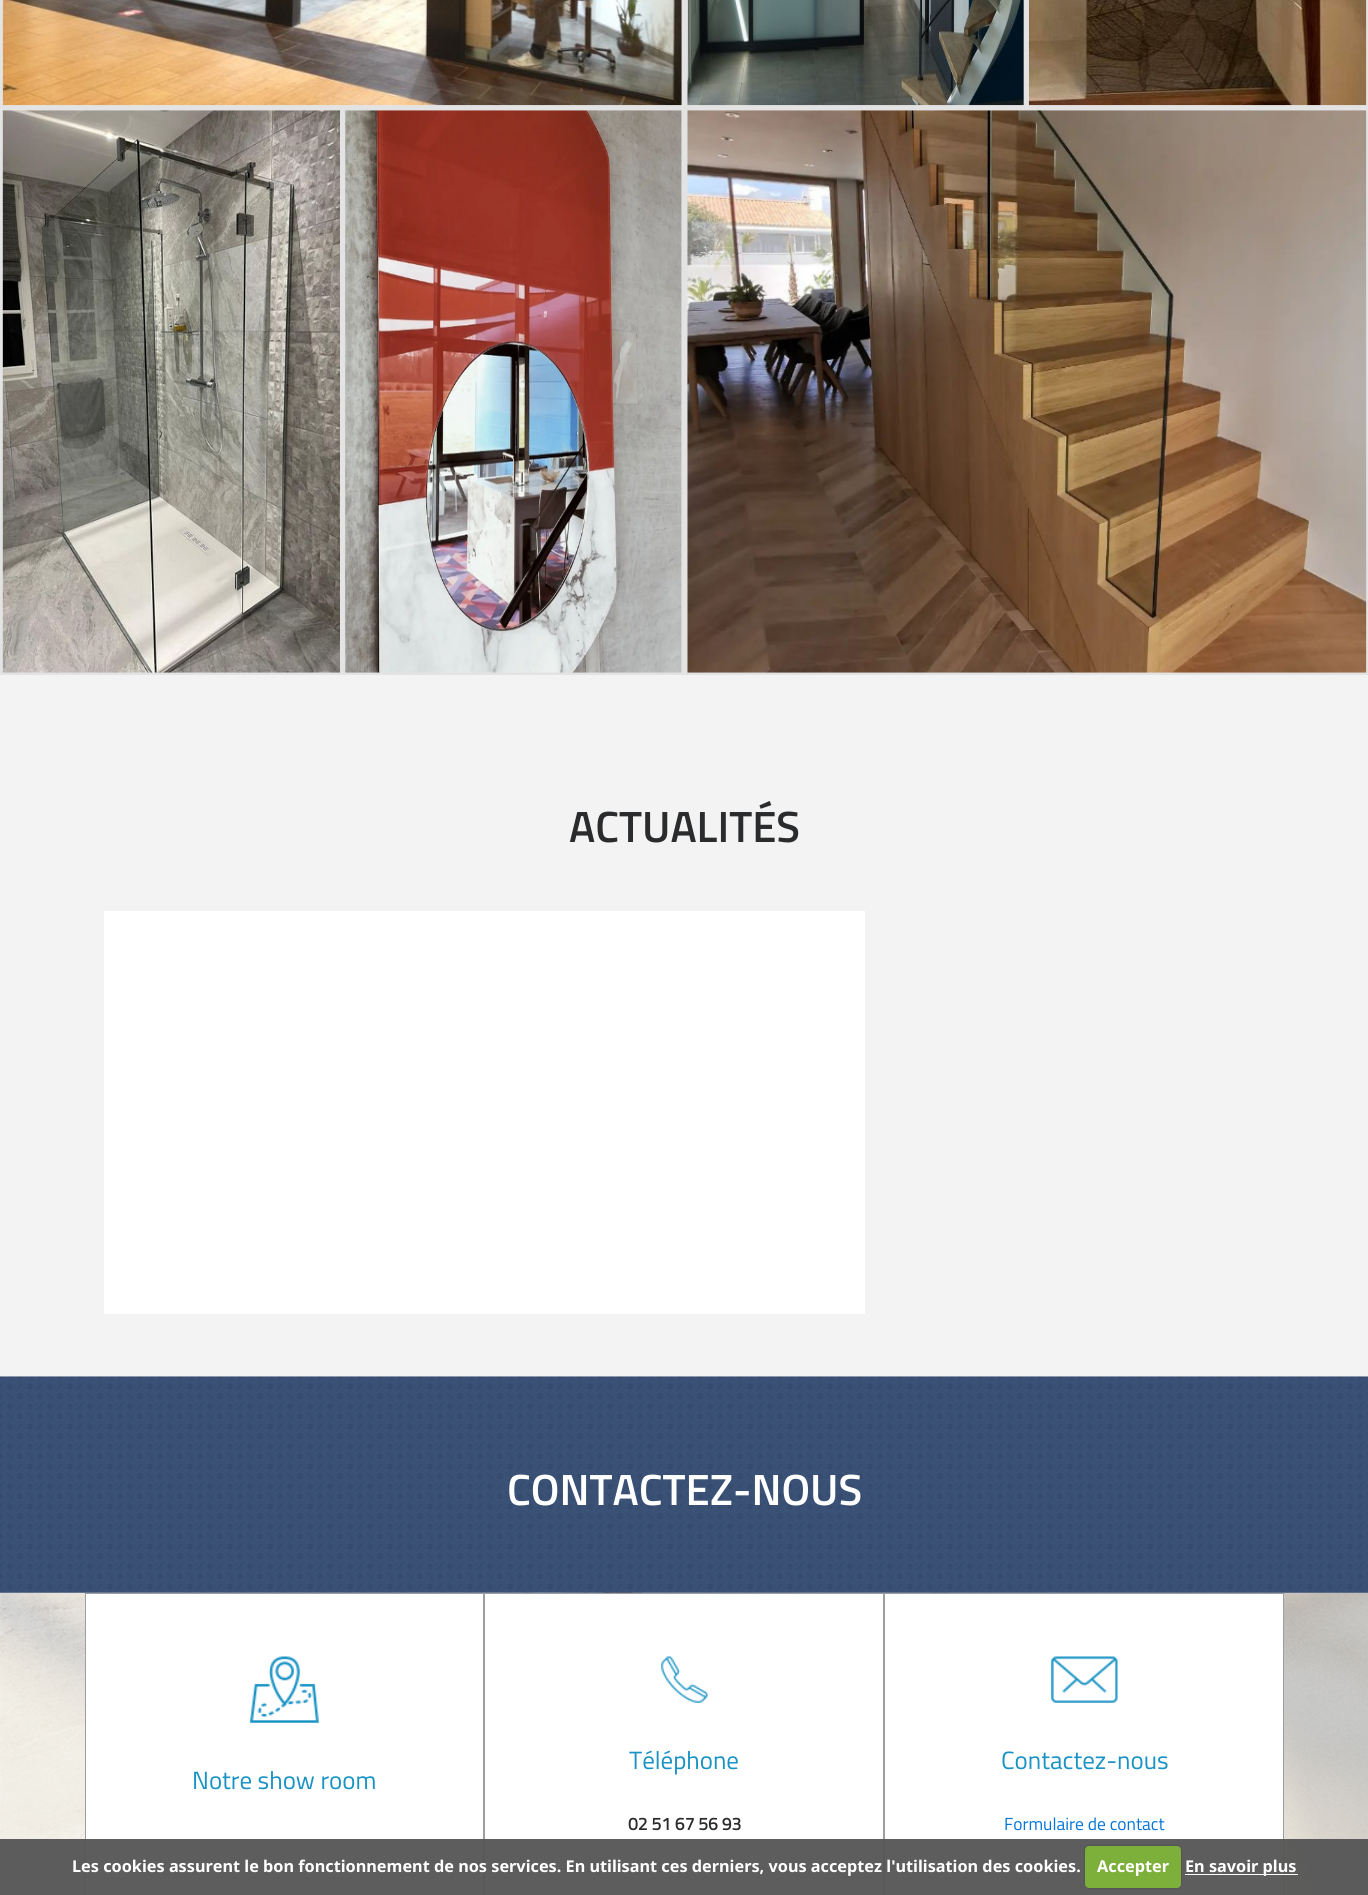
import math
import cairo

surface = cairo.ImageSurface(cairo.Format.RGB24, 1368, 1895)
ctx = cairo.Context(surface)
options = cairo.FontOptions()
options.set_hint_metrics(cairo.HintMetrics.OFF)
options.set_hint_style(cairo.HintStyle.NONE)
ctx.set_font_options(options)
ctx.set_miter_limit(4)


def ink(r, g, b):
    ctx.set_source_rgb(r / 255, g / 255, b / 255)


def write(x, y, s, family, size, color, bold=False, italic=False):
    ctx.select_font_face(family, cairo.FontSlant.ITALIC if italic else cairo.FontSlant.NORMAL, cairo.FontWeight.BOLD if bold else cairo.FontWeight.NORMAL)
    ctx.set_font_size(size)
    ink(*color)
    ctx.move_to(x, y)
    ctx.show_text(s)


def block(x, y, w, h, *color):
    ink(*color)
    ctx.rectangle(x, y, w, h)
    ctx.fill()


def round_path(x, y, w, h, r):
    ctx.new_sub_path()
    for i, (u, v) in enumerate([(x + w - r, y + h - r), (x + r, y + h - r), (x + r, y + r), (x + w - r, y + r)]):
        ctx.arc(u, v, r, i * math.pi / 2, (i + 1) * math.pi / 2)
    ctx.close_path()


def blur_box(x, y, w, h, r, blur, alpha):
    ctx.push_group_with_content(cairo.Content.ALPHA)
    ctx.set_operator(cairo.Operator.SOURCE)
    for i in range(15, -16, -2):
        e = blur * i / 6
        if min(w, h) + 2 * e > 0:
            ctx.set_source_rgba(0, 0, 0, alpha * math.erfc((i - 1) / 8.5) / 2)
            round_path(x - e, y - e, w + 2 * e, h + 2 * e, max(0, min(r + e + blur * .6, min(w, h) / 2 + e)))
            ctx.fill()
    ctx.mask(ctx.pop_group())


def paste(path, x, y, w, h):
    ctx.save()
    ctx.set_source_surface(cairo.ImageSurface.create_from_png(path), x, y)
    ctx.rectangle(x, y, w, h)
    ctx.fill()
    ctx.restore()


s1 = dict(family="Titillium Web SemiBold", size=43.75, color=(41, 43, 44))
s2 = dict(family="Titillium Web SemiBold", size=43.75, color=(255, 255, 255))
s3 = dict(family="Titillium Web", size=25, color=(25, 146, 196))
s4 = dict(family="Titillium Web", size=17.5, color=(41, 43, 44), bold=True)
s5 = dict(family="Titillium Web", size=17.5, color=(2, 117, 216))
s6 = dict(family="Noto Sans", size=16.25, color=(255, 255, 255), bold=True)

ink(227, 227, 227)
ctx.paint()
paste("pic1.png", 2, 0, 680, 106)
paste("pic2.png", 687, 0, 337, 106)
paste("pic3.png", 1028, 0, 339, 106)
paste("pic4.png", 2, 110, 338, 563)
paste("pic5.png", 345, 110, 337, 563)
paste("pic6.png", 687, 110, 680, 563)
block(0, 675, 1368, 701, 243, 243, 243)
write(569, 842, "ACTUALITÉS", **s1)
block(104, 911, 761, 403, 255, 255, 255)
paste("pic7.png", 0, 1376, 1368, 217)
write(507, 1505, "CONTACTEZ-NOUS", **s2)
paste("pic8.png", 0, 1592, 1368, 303)
ctx.rectangle(85.5, 1593.5, 398, 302)
ctx.fill_preserve()
ink(156, 158, 159)
ctx.set_line_width(1)
ctx.stroke()
paste("pic9.png", 250, 1656, 69, 67)
write(192, 1789, "Notre show room", **s3)
ink(255, 255, 255)
ctx.rectangle(484.5, 1593.5, 399, 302)
ctx.fill_preserve()
ink(156, 158, 159)
ctx.stroke()
paste("pic10.png", 661, 1656, 47, 47)
write(629, 1769, "Téléphone", **s3)
write(628, 1830, "02 51 67 56 93", **s4)
ink(255, 255, 255)
ctx.rectangle(884.5, 1593.5, 399, 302)
ctx.fill_preserve()
ink(156, 158, 159)
ctx.stroke()
paste("pic11.png", 1051, 1656, 67, 47)
write(1001, 1769, "Contactez-nous", **s3)
write(1004, 1830, "Formulaire de contact", **s5)
ctx.set_source_rgba(0.337, 0.337, 0.337, 0.95)
ctx.rectangle(0, 1839, 1368, 56)
ctx.fill()
write(72, 1872, "Les cookies assurent le bon fonctionnement de nos services. En utilisant ces derniers, vous acceptez l'utilisation des cookies.", **s6)
ink(0, 0, 0)
blur_box(1085, 1846, 96, 42, 4, 1, 0.25)
ink(125, 175, 59)
round_path(1085, 1846, 96, 42, 4)
ctx.fill()
write(1097, 1872, "Accepter", **s6)
block(1185, 1874, 113, 1, 255, 255, 255)
write(1185, 1872, "En savoir plus", **s6)
surface.write_to_png("screenshot.png")
